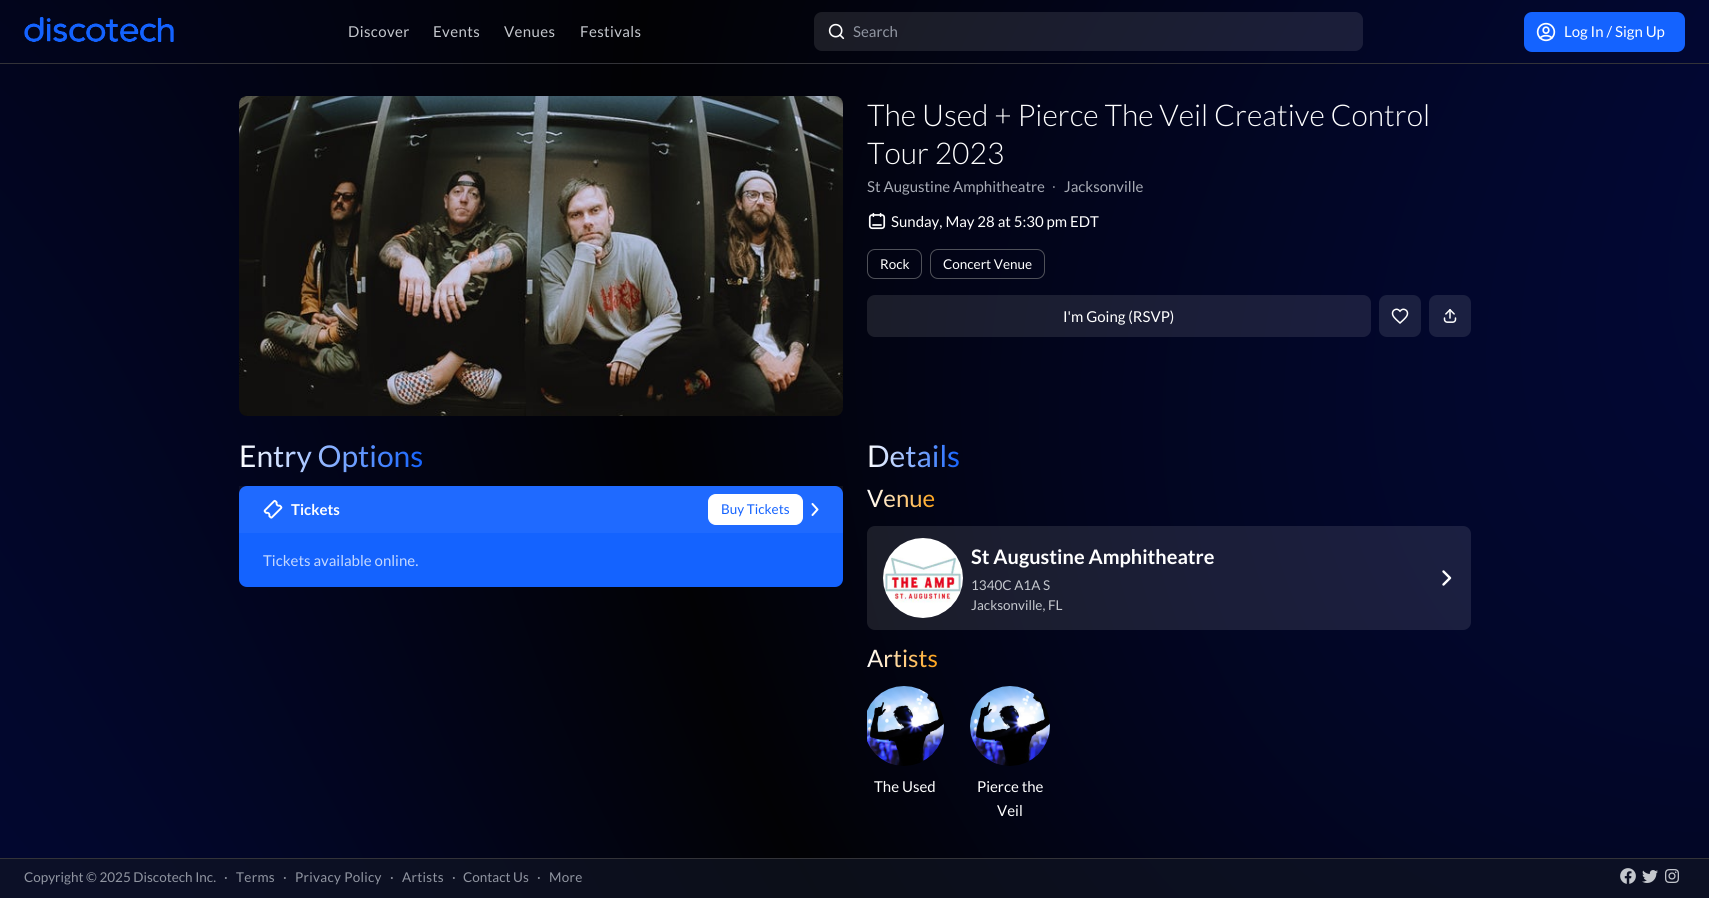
import math
import cairo

surface = cairo.ImageSurface(cairo.Format.RGB24, 1709, 898)
ctx = cairo.Context(surface)
options = cairo.FontOptions()
options.set_hint_metrics(cairo.HintMetrics.OFF)
options.set_hint_style(cairo.HintStyle.NONE)
ctx.set_font_options(options)
ctx.set_miter_limit(4)


def ink(r, g, b):
    ctx.set_source_rgb(r / 255, g / 255, b / 255)


def write(x, y, s, family, size, color, bold=False, italic=False):
    ctx.select_font_face(family, cairo.FontSlant.ITALIC if italic else cairo.FontSlant.NORMAL, cairo.FontWeight.BOLD if bold else cairo.FontWeight.NORMAL)
    ctx.set_font_size(size)
    ink(*color)
    ctx.move_to(x, y)
    ctx.show_text(s)


def write_spaced(x, y, s, letter, word):
    ctx.move_to(x, y)
    for ch in s:
        ctx.show_text(ch)
        ctx.rel_move_to(letter + word * (ch == ' '), 0)


def block(x, y, w, h, *color):
    ink(*color)
    ctx.rectangle(x, y, w, h)
    ctx.fill()


def round_path(x, y, w, h, r):
    ctx.new_sub_path()
    for i, (u, v) in enumerate([(x + w - r, y + h - r), (x + r, y + h - r), (x + r, y + r), (x + w - r, y + r)]):
        ctx.arc(u, v, r, i * math.pi / 2, (i + 1) * math.pi / 2)
    ctx.close_path()


def paste(path, x, y, w, h):
    ctx.save()
    ctx.set_source_surface(cairo.ImageSurface.create_from_png(path), x, y)
    ctx.rectangle(x, y, w, h)
    ctx.fill()
    ctx.restore()


s1 = dict(family="Lato", size=15, color=(144, 149, 161))
s2 = dict(family="Lato", size=15, color=(255, 255, 255))
s3 = dict(family="Lato Light", size=30, color=(255, 255, 255))
s4 = dict(family="Lato", size=15, color=(166, 170, 180))
s5 = dict(family="Liberation Serif", size=15, color=(166, 170, 180))
s6 = dict(family="Lato", size=13.5, color=(255, 255, 255))
s7 = dict(family="Lato", size=15, color=(255, 255, 255), bold=True)
s8 = dict(family="Lato", size=13.5, color=(20, 99, 255))
s9 = dict(family="Lato", size=15, color=(196, 216, 255))
s10 = dict(family="Lato", size=20, color=(255, 255, 255), bold=True)
s11 = dict(family="Lato", size=13.5, color=(196, 199, 205))
s12 = dict(family="Lato", size=13.5, color=(144, 149, 161))

ink(255, 255, 255)
ctx.paint()
paste("pic1.png", 0, 0, 1709, 898)
block(0, 63, 1709, 1, 51, 51, 56)
paste("pic2.png", 24, 17, 150, 25)
ctx.select_font_face("Lato")
ctx.set_font_size(15)
ink(196, 199, 205)
write_spaced(348, 37, "Discover", 0.4, 0)
write_spaced(433, 37, "Events", 0.4, 0)
write_spaced(504, 37, "Venues", 0.4, 0)
write_spaced(580, 37, "Festivals", 0.4, 0)
ctx.set_source_rgba(1, 1, 1, 0.1)
round_path(814, 12, 549, 39, 8)
ctx.fill()
paste("pic3.png", 828, 23, 17, 17)
write(853, 37, "Search", **s1)
ink(20, 99, 255)
round_path(1524, 12, 161, 40, 8)
ctx.fill()
paste("pic4.png", 1536, 22, 20, 20)
write(1564, 37, "Log In / Sign Up", **s2)
paste("pic5.png", 239, 96, 604, 320)
write(867, 126, "The Used + Pierce The Veil Creative Control", **s3)
write(867, 164, "Tour 2023", **s3)
write(867, 192, "St Augustine Amphitheatre", **s4)
write(1052, 192, "∙", **s5)
write(1064, 192, "Jacksonville", **s4)
paste("pic6.png", 868, 212, 18, 18)
write(891, 227, "Sunday, May 28 at 5:30 pm EDT", **s2)
round_path(867.5, 249.5, 54, 29, 7.5)
ink(79, 81, 89)
ctx.set_line_width(1)
ctx.stroke()
write(880, 269, "Rock", **s6)
round_path(930.5, 249.5, 114, 29, 7.5)
ink(79, 81, 89)
ctx.stroke()
write(943, 269, "Concert Venue", **s6)
ctx.set_source_rgba(1, 1, 1, 0.1)
round_path(867, 295, 504, 42, 8)
ctx.fill()
write(1063, 322, "I'm Going (RSVP)", **s2)
ink(27, 32, 64)
round_path(1379, 295, 42, 42, 8)
ctx.fill()
paste("pic7.png", 1391, 308, 18, 16)
ink(27, 32, 65)
round_path(1429, 295, 42, 42, 8)
ctx.fill()
paste("pic8.png", 1443, 309, 14, 14)
ctx.set_font_size(30)
gradient = cairo.LinearGradient(239, 455, 423, 455)
gradient.add_color_stop_rgba(0, 1, 1, 1, 1)
gradient.add_color_stop_rgba(1, 0.078, 0.388, 1, 1)
ctx.set_source(gradient)
ctx.move_to(239, 467)
ctx.show_text("Entry Options")
ink(20, 99, 255)
round_path(239, 486, 604, 101, 8)
ctx.fill()
ctx.set_source_rgba(1, 1, 1, 0.05)
ctx.rectangle(239, 486, 604, 47)
ctx.fill()
paste("pic9.png", 263, 499, 20, 20)
write(291, 515, "Tickets", **s7)
round_path(708.5, 494.5, 94, 30, 7.5)
ctx.fill_preserve()
ctx.stroke()
write(721, 514, "Buy Tickets", **s8)
ctx.new_path()
ctx.move_to(812.5, 515)
ctx.line_to(817.5, 509.5)
ctx.line_to(812.5, 504)
ink(255, 255, 255)
ctx.set_line_width(2)
ctx.set_line_cap(cairo.LineCap.ROUND)
ctx.set_line_join(cairo.LineJoin.ROUND)
ctx.stroke()
write(263, 566, "Tickets available online.", **s9)
ctx.set_font_size(30)
gradient = cairo.LinearGradient(867, 455, 960, 455)
gradient.add_color_stop_rgba(0, 1, 1, 1, 1)
gradient.add_color_stop_rgba(1, 0.078, 0.388, 1, 1)
ctx.set_source(gradient)
ctx.move_to(867, 467)
ctx.show_text("Details")
ctx.set_font_size(24)
gradient = cairo.LinearGradient(867, 498, 935, 498)
gradient.add_color_stop_rgba(0, 1, 1, 1, 1)
gradient.add_color_stop_rgba(1, 1, 0.643, 0.102, 1)
ctx.set_source(gradient)
ctx.move_to(867, 507)
ctx.show_text("Venue")
ctx.set_source_rgba(1, 1, 1, 0.1)
round_path(867, 526, 604, 104, 8)
ctx.fill()
paste("pic10.png", 883, 538, 80, 80)
write(971, 564, "St Augustine Amphitheatre", **s10)
write(971, 590, "1340C A1A S", **s11)
write(971, 610, "Jacksonville, FL", **s11)
ctx.new_path()
ctx.move_to(1443.5, 584.5)
ctx.line_to(1450, 578)
ctx.line_to(1443.5, 571.5)
ink(255, 255, 255)
ctx.set_line_width(2.4)
ctx.stroke()
ctx.set_font_size(24)
gradient = cairo.LinearGradient(867, 658, 937, 658)
gradient.add_color_stop_rgba(0, 1, 1, 1, 1)
gradient.add_color_stop_rgba(1, 1, 0.643, 0.102, 1)
ctx.set_source(gradient)
ctx.move_to(867, 667)
ctx.show_text("Artists")
paste("pic11.png", 867, 686, 77, 80)
write(874, 792, "The Used", **s2)
paste("pic12.png", 970, 686, 80, 80)
write(977, 792, "Pierce the", **s2)
write(997, 816, "Veil", **s2)
ctx.set_source_rgba(0.071, 0.086, 0.137, 0.66)
ctx.rectangle(0, 859, 1709, 39)
ctx.fill()
block(0, 858, 1709, 1, 51, 51, 56)
write(24, 882, "Copyright © 2025 Discotech Inc.", **s12)
write(224, 882, "·", **s12)
write_spaced(236, 882, "Terms", 0.3, 0)
write(283, 882, "·", **s12)
write_spaced(295, 882, "Privacy Policy", 0.3, 0)
write(390, 882, "·", **s12)
write_spaced(402, 882, "Artists", 0.3, 0)
write(452, 882, "·", **s12)
write(463, 882, "Contact Us", **s12)
write(537, 882, "·", **s12)
write_spaced(549, 882, "More", 0.3, 0)
paste("pic13.png", 1620, 868, 16, 16)
paste("pic14.png", 1642, 870, 16, 13)
paste("pic15.png", 1665, 869, 14, 14)
surface.write_to_png("screenshot.png")
